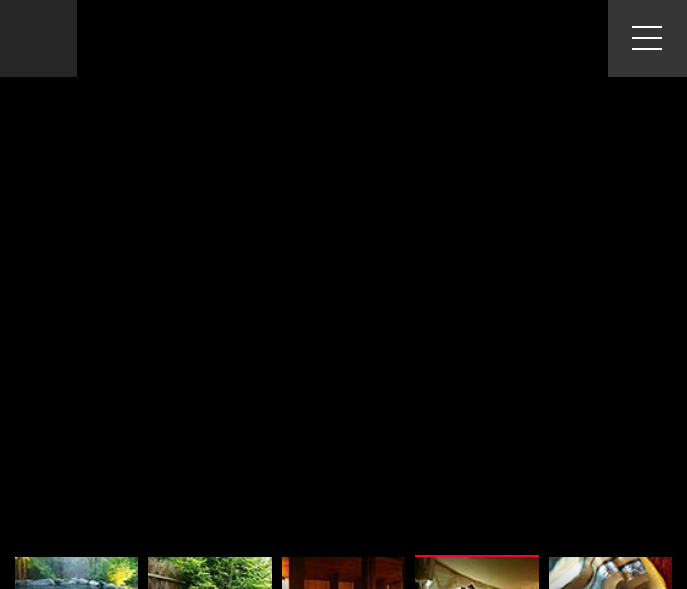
import math
import cairo

surface = cairo.ImageSurface(cairo.Format.RGB24, 687, 589)
ctx = cairo.Context(surface)
options = cairo.FontOptions()
options.set_hint_metrics(cairo.HintMetrics.OFF)
options.set_hint_style(cairo.HintStyle.NONE)
ctx.set_font_options(options)
ctx.set_miter_limit(4)


def ink(r, g, b):
    ctx.set_source_rgb(r / 255, g / 255, b / 255)


def block(x, y, w, h, *color):
    ink(*color)
    ctx.rectangle(x, y, w, h)
    ctx.fill()


def paste(path, x, y, w, h):
    ctx.save()
    ctx.set_source_surface(cairo.ImageSurface.create_from_png(path), x, y)
    ctx.rectangle(x, y, w, h)
    ctx.fill()
    ctx.restore()


ink(0, 0, 0)
ctx.paint()
block(0, 0, 77, 77, 38, 38, 38)
paste("pic1.png", 15, 557, 123, 32)
paste("pic2.png", 148, 557, 124, 32)
paste("pic3.png", 282, 557, 123, 32)
paste("pic4.png", 415, 557, 124, 32)
block(415, 555, 124, 2, 255, 0, 51)
paste("pic5.png", 549, 557, 123, 32)
block(608, 0, 79, 77, 54, 54, 54)
block(632, 26, 30, 2, 255, 255, 255)
block(632, 37, 30, 2, 255, 255, 255)
block(632, 48, 30, 2, 255, 255, 255)
surface.write_to_png("screenshot.png")
